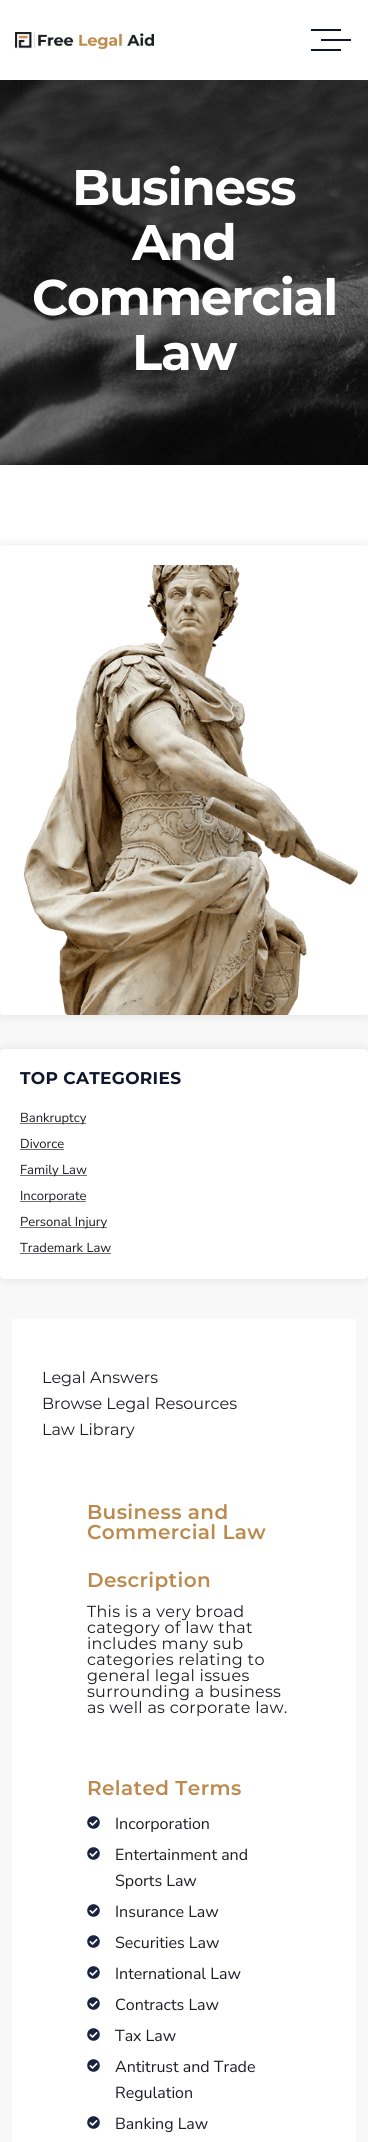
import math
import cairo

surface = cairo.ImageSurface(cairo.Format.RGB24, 368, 2142)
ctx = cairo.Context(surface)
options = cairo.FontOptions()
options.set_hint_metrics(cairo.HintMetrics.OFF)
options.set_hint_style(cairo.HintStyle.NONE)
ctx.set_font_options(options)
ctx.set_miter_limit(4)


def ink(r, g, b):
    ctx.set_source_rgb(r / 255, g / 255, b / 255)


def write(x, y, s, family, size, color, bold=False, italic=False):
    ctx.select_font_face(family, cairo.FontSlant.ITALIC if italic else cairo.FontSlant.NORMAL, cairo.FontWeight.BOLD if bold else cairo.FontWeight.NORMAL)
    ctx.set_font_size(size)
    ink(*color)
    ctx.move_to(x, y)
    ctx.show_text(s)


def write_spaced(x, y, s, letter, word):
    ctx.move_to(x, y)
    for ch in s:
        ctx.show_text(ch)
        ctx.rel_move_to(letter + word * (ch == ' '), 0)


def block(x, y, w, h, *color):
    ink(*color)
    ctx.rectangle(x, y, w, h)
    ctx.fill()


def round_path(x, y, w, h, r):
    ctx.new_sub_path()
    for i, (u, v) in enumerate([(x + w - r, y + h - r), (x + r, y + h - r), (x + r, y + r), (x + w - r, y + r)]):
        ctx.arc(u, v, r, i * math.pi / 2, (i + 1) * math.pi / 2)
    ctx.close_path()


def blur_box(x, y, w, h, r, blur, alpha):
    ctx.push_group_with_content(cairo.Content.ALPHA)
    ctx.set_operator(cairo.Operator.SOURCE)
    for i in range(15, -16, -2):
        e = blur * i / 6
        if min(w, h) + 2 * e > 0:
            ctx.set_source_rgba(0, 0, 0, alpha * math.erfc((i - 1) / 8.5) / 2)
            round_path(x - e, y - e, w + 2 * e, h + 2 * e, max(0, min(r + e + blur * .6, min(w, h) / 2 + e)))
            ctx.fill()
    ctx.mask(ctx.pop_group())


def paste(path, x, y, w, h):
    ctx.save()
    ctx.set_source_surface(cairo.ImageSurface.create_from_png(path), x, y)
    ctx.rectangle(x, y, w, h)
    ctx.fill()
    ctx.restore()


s1 = dict(family="Nunito Sans", size=13, color=(28, 28, 35))
s2 = dict(family="Montserrat Thin", size=16, color=(28, 28, 35))
s3 = dict(family="Nunito Sans", size=16, color=(28, 28, 35))

ink(255, 255, 255)
ctx.paint()
paste("pic1.png", 15, 32, 139, 17)
block(311, 29, 30, 2, 16, 23, 44)
block(321, 39, 30, 2, 16, 23, 44)
block(311, 49, 30, 2, 16, 23, 44)
paste("pic2.png", 0, 80, 368, 385)
ctx.select_font_face("Montserrat", cairo.FontSlant.NORMAL, cairo.FontWeight.BOLD)
ctx.set_font_size(50)
ink(255, 255, 255)
write_spaced(72, 205, "Business", -1.25, 0)
write_spaced(132, 260, "And", -1.25, 0)
write_spaced(32, 315, "Commercial", -1.25, 0)
write_spaced(132, 370, "Law", -1.25, 0)
block(0, 545, 368, 1597, 248, 248, 248)
ink(0, 0, 0)
blur_box(0, 545, 368, 470, 3, 5, 0.1)
ink(255, 255, 255)
round_path(0, 545, 368, 470, 3)
ctx.fill()
paste("pic3.png", 23, 565, 335, 450)
ink(0, 0, 0)
blur_box(0, 1049, 368, 230, 4, 5, 0.1)
ink(255, 255, 255)
round_path(0, 1049, 368, 230, 4)
ctx.fill()
ctx.set_font_size(17)
ink(16, 23, 44)
write_spaced(20, 1084, "TOP CATEGORIES", 0.3, 0)
block(20, 1123, 66, 1, 109, 109, 109)
write(20, 1122, "Bankruptcy", **s1)
write(20, 1148, "Divorce", **s1)
block(20, 1149, 44, 1, 109, 109, 109)
block(20, 1175, 67, 1, 109, 109, 109)
write(20, 1174, "Family Law", **s1)
block(20, 1201, 66, 1, 109, 109, 109)
write(20, 1200, "Incorporate", **s1)
block(20, 1227, 87, 1, 109, 109, 109)
write(20, 1226, "Personal Injury", **s1)
write(20, 1252, "Trademark Law", **s1)
block(20, 1253, 91, 1, 109, 109, 109)
block(12, 1319, 344, 823, 255, 255, 255)
write(42, 1383, "Legal Answers", **s2)
write(42, 1409, "Browse Legal Resources", **s2)
write(42, 1435, "Law Library", **s2)
ctx.select_font_face("Montserrat SemiBold")
ctx.set_font_size(20)
ink(188, 138, 77)
write_spaced(87, 1519, "Business and", 0.4, 0)
write_spaced(87, 1539, "Commercial Law", 0.4, 0)
write_spaced(87, 1587, "Description", 0.4, 0)
ctx.select_font_face("Montserrat Thin")
ctx.set_font_size(16)
ink(28, 28, 35)
write_spaced(87, 1617, "This is a very broad", 0.3, 0)
write_spaced(87, 1633, "category of law that", 0.3, 0)
write_spaced(87, 1649, "includes many sub", 0.3, 0)
write_spaced(87, 1665, "categories relating to", 0.3, 0)
write_spaced(87, 1681, "general legal issues", 0.3, 0)
write_spaced(87, 1697, "surrounding a business", 0.3, 0)
write_spaced(87, 1713, "as well as corporate law.", 0.3, 0)
ctx.select_font_face("Montserrat SemiBold")
ctx.set_font_size(20)
ink(188, 138, 77)
write_spaced(87, 1795, "Related Terms", 0.4, 0)
paste("pic4.png", 87, 1816, 13, 13)
write(115, 1829, "Incorporation", **s3)
paste("pic4.png", 87, 1847, 13, 13)
write(115, 1860, "Entertainment and", **s3)
write(115, 1886, "Sports Law", **s3)
paste("pic4.png", 87, 1904, 13, 13)
write(115, 1917, "Insurance Law", **s3)
paste("pic4.png", 87, 1935, 13, 13)
write(115, 1948, "Securities Law", **s3)
paste("pic4.png", 87, 1966, 13, 13)
write(115, 1979, "International Law", **s3)
paste("pic4.png", 87, 1997, 13, 13)
write(115, 2010, "Contracts Law", **s3)
paste("pic4.png", 87, 2028, 13, 13)
write(115, 2041, "Tax Law", **s3)
paste("pic4.png", 87, 2059, 13, 13)
write(115, 2072, "Antitrust and Trade", **s3)
write(115, 2098, "Regulation", **s3)
paste("pic4.png", 87, 2116, 13, 13)
write(115, 2129, "Banking Law", **s3)
surface.write_to_png("screenshot.png")
